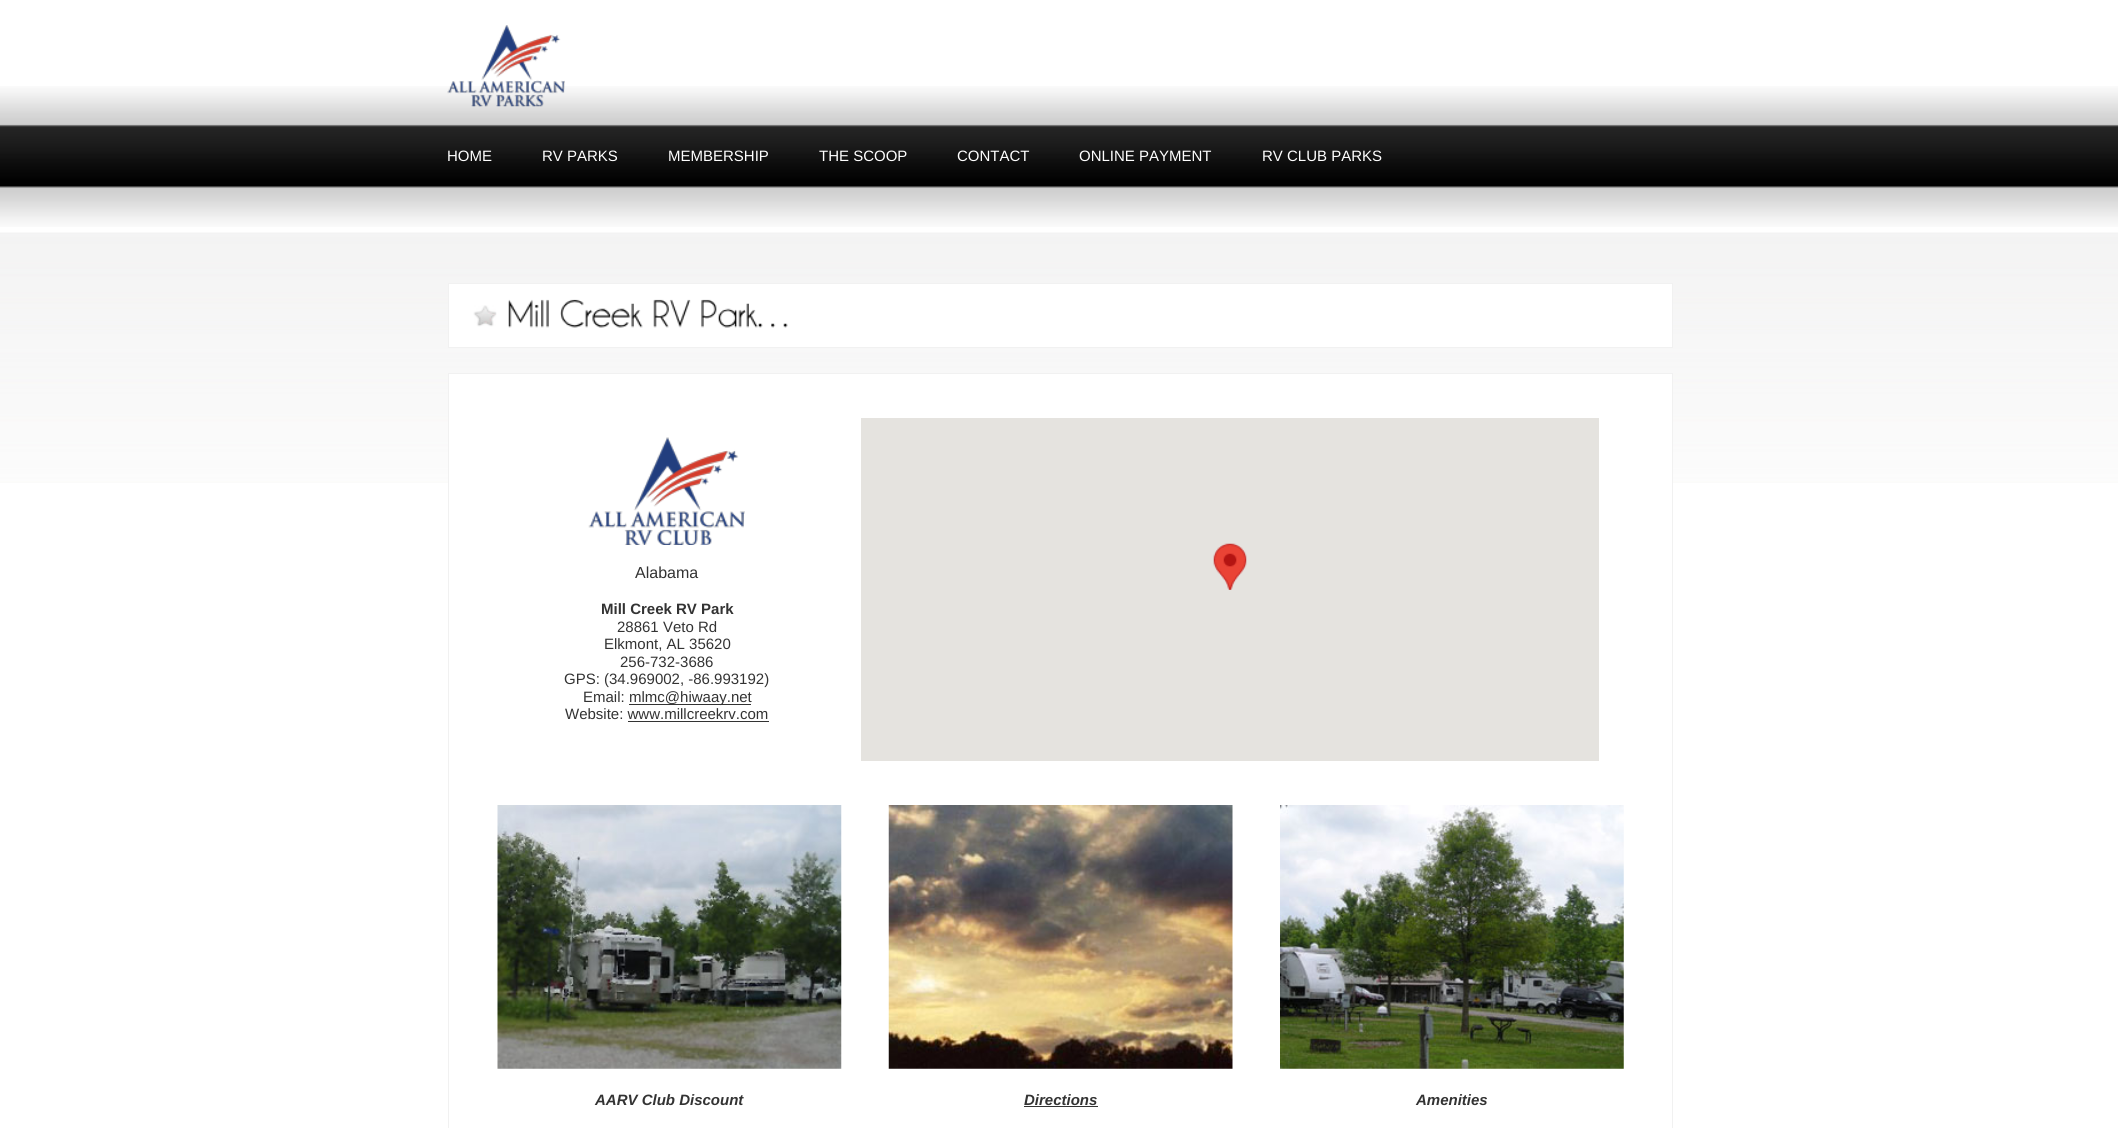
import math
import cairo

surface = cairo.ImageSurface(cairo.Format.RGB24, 2118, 1128)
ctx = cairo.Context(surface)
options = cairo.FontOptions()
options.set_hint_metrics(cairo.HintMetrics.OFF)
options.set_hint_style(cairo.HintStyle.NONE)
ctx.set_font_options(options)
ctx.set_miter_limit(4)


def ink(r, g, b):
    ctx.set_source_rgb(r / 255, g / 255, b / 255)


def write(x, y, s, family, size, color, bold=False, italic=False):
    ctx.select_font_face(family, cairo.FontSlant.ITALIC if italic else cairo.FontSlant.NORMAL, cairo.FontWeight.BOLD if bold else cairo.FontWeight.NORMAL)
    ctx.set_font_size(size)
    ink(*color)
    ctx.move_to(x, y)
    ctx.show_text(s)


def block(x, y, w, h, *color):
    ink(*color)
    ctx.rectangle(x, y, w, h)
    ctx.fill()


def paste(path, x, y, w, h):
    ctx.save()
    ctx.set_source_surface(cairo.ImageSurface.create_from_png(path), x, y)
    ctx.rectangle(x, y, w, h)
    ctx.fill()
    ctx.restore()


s1 = dict(family="Liberation Sans", size=15, color=(255, 255, 255))
s2 = dict(family="Liberation Sans", size=16, color=(51, 51, 51))
s3 = dict(family="Liberation Sans", size=15, color=(51, 51, 51), bold=True)
s4 = dict(family="Liberation Sans", size=15, color=(51, 51, 51))
s5 = dict(family="Liberation Sans", size=15, color=(51, 51, 51), bold=True, italic=True)

ink(255, 255, 255)
ctx.paint()
paste("pic1.png", 0, 86, 2118, 141)
paste("pic2.png", 447, 25, 118, 82)
write(447, 161, "HOME", **s1)
write(542, 161, "RV PARKS", **s1)
write(668, 161, "MEMBERSHIP", **s1)
write(819, 161, "THE SCOOP", **s1)
write(957, 161, "CONTACT", **s1)
write(1079, 161, "ONLINE PAYMENT", **s1)
write(1262, 161, "RV CLUB PARKS", **s1)
paste("pic3.png", 0, 232, 2118, 251)
ctx.rectangle(448.5, 283.5, 1224, 64)
ctx.fill_preserve()
ink(241, 241, 241)
ctx.set_line_width(1)
ctx.stroke()
paste("pic4.png", 473, 305, 24, 22)
paste("pic5.png", 508, 299, 41, 29)
paste("pic6.png", 560, 299, 83, 29)
paste("pic7.png", 653, 299, 38, 29)
paste("pic8.png", 701, 299, 87, 29)
block(449, 374, 1223, 109, 255, 255, 255)
ctx.rectangle(448.5, 373.5, 1224, 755)
ink(241, 241, 241)
ctx.stroke()
paste("pic9.png", 588, 437, 157, 108)
write(635, 578, "Alabama", **s2)
write(601, 614, "Mill Creek RV Park", **s3)
write(617, 632, "28861 Veto Rd", **s4)
write(604, 649, "Elkmont, AL 35620", **s4)
write(620, 667, "256-732-3686", **s4)
write(564, 684, "GPS: (34.969002, -86.993192)", **s4)
write(583, 702, "Email:", **s4)
block(629, 704, 122, 1, 51, 51, 51)
write(629, 702, "mlmc@hiwaay.net", **s4)
write(565, 719, "Website: www.millcreekrv.com", **s4)
block(628, 721, 141, 1, 51, 51, 51)
block(861, 418, 738, 343, 229, 227, 223)
paste("pic10.png", 1213, 543, 34, 47)
paste("pic11.png", 497, 805, 345, 264)
paste("pic12.png", 888, 805, 345, 264)
paste("pic13.png", 1280, 805, 344, 264)
write(595, 1105, "AARV Club Discount", **s5)
write(1024, 1105, "Directions", **s5)
block(1024, 1106, 74, 1, 51, 51, 51)
write(1416, 1105, "Amenities", **s5)
surface.write_to_png("screenshot.png")
